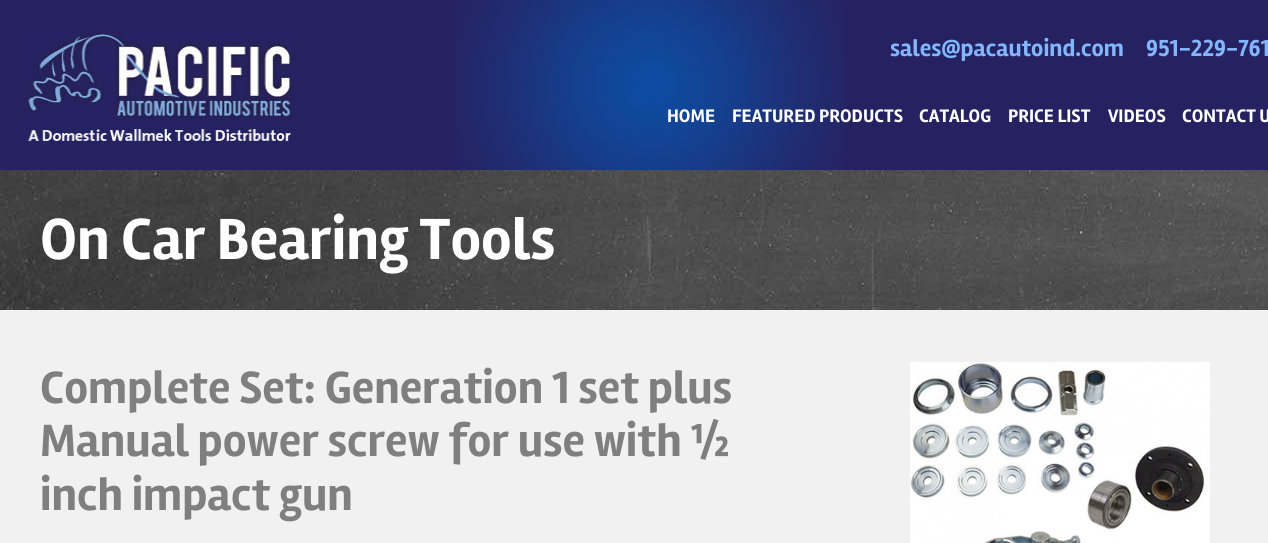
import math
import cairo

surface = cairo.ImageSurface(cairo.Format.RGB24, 1268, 543)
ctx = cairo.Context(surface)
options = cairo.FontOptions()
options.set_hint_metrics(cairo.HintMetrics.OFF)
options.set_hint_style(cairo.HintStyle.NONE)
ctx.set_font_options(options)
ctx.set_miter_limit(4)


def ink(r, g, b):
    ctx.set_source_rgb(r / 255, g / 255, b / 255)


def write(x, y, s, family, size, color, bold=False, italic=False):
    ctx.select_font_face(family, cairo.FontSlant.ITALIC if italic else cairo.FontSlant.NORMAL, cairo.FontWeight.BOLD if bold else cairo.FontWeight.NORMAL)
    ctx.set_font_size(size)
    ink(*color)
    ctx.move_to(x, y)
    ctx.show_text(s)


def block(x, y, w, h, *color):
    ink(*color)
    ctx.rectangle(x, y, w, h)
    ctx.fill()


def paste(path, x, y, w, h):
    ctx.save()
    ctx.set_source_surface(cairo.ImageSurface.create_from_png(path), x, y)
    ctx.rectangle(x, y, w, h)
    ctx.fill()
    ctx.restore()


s1 = dict(family="Rambla", size=24, color=(130, 182, 255), bold=True)
s2 = dict(family="Rambla", size=18.75, color=(255, 255, 255), bold=True)
s3 = dict(family="Rambla", size=60, color=(255, 255, 255), bold=True)
s4 = dict(family="Rambla", size=46.7, color=(127, 127, 127), bold=True)

ink(38, 34, 98)
ctx.paint()
paste("pic1.png", 456, 0, 389, 170)
paste("pic2.png", 24, 32, 270, 112)
write(890, 56, "sales@pacautoind.com", **s1)
write(1146, 56, "951-229-761", **s1)
write(667, 122, "HOME", **s2)
write(732, 122, "FEATURED PRODUCTS", **s2)
write(919, 122, "CATALOG", **s2)
write(1008, 122, "PRICE LIST", **s2)
write(1108, 122, "VIDEOS", **s2)
write(1182, 122, "CONTACT U", **s2)
paste("pic3.png", 0, 170, 1268, 140)
write(40, 259, "On Car Bearing Tools", **s3)
block(0, 310, 1268, 233, 241, 241, 241)
write(40, 403, "Complete Set: Generation 1 set plus", **s4)
write(40, 456, "Manual power screw for use with ½", **s4)
write(40, 510, "inch impact gun", **s4)
paste("pic4.png", 910, 362, 300, 181)
surface.write_to_png("screenshot.png")
